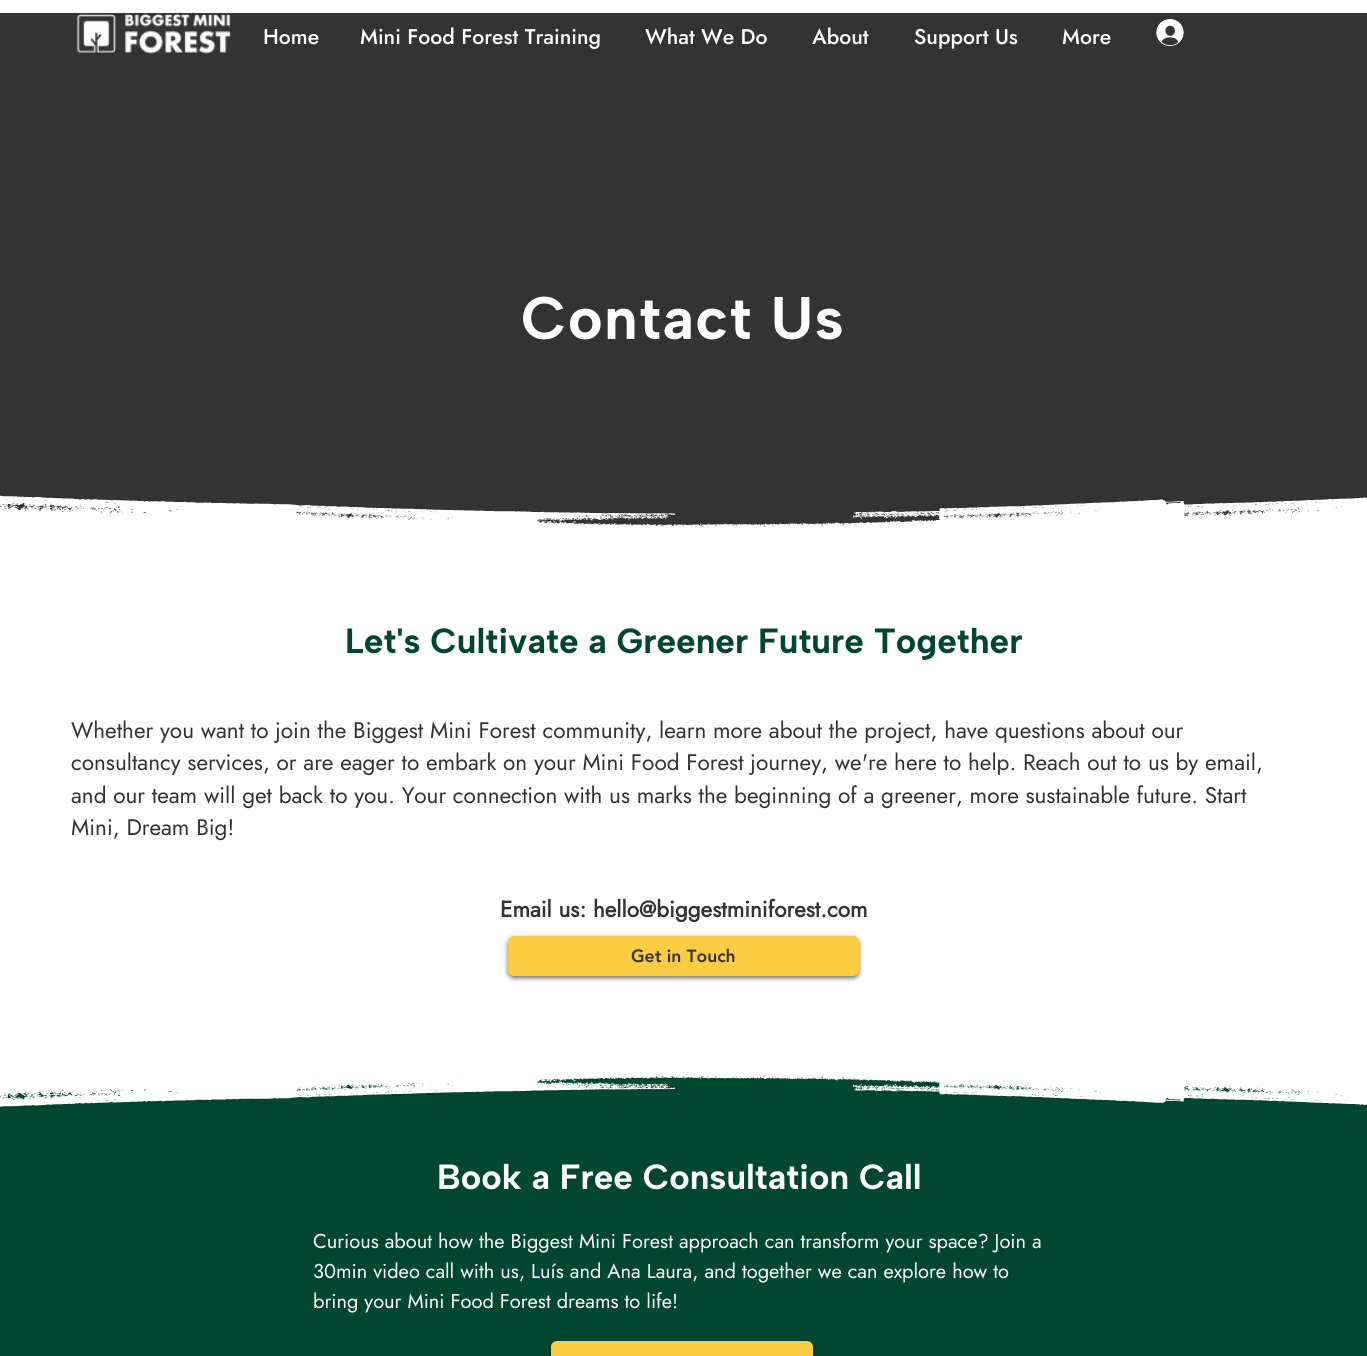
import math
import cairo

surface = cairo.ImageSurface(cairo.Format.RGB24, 1367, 1356)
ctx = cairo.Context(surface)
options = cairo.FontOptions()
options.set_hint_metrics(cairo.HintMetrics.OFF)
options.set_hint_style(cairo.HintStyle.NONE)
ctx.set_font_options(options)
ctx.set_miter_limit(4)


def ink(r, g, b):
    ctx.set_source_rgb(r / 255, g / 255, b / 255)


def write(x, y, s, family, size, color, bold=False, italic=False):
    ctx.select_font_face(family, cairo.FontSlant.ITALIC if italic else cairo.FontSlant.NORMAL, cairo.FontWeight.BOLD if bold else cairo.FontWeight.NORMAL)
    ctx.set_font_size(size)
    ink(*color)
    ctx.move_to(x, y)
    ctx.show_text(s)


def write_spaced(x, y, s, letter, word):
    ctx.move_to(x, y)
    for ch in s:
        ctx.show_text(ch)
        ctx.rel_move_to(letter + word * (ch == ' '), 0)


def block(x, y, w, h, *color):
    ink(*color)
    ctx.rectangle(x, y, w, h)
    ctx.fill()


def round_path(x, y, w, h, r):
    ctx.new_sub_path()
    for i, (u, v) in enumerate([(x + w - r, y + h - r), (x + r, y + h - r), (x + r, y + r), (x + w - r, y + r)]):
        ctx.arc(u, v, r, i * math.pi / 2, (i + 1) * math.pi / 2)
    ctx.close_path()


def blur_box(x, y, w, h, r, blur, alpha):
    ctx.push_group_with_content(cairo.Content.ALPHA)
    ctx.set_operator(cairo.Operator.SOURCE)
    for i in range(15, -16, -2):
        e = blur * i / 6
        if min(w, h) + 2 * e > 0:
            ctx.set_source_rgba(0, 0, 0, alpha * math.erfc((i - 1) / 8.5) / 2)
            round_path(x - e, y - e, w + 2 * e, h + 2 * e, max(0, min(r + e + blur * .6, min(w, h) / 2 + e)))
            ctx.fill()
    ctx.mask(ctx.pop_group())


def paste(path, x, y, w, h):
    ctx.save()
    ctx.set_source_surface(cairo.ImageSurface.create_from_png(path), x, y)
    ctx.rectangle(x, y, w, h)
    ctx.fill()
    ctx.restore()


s1 = dict(family="Jost Medium", size=21.25, color=(255, 255, 255))
s2 = dict(family="Albert Sans", size=35, color=(0, 70, 48), bold=True)
s3 = dict(family="Jost", size=22.5, color=(51, 51, 51))
s4 = dict(family="Jost", size=22.5, color=(51, 51, 51), bold=True)
s5 = dict(family="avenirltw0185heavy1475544 Black", size=17.5, color=(51, 51, 51))
s6 = dict(family="Albert Sans", size=35, color=(255, 255, 255), bold=True)
s7 = dict(family="Jost", size=20, color=(255, 255, 255))

ink(255, 255, 255)
ctx.paint()
block(0, 13, 1367, 515, 51, 51, 51)
paste("pic1.png", 76, 13, 155, 41)
write(263, 44, "Home", **s1)
write(360, 44, "Mini Food Forest Training", **s1)
write(645, 44, "What We Do", **s1)
write(812, 44, "About", **s1)
write(914, 44, "Support Us", **s1)
write(1062, 44, "More", **s1)
paste("pic2.png", 1156, 19, 28, 27)
ctx.select_font_face("Albert Sans", cairo.FontSlant.NORMAL, cairo.FontWeight.BOLD)
ctx.set_font_size(60)
write_spaced(521, 339, "Contact Us", 1.25, 0)
paste("pic3.png", 0, 495, 1367, 60)
write(345, 653, "Let's Cultivate a Greener Future Together", **s2)
write(71, 738, "Whether you want to join the Biggest Mini Forest community, learn more about the project, have questions about our", **s3)
write(71, 770, "consultancy services, or are eager to embark on your Mini Food Forest journey, we're here to help. Reach out to us by email,", **s3)
write(71, 803, "and our team will get back to you. Your connection with us marks the beginning of a greener, more sustainable future. Start", **s3)
write(71, 835, "Mini, Dream Big!", **s3)
write(500, 917, "Email us: hello@biggestminiforest.com", **s4)
ink(0, 0, 0)
blur_box(508, 938, 351, 40, 6, 2.5, 0.6)
ink(252, 205, 67)
round_path(508, 936, 351, 40, 6)
ctx.fill()
write(631, 962, "Get in Touch", **s5)
block(0, 1075, 1367, 281, 0, 70, 48)
paste("pic4.png", 0, 1048, 1367, 59)
write(437, 1189, "Book a Free Consultation Call", **s6)
write(313, 1248, "Curious about how the Biggest Mini Forest approach can transform your space? Join a", **s7)
write(313, 1278, "30min video call with us, Luís and Ana Laura, and together we can explore how to", **s7)
write(313, 1308, "bring your Mini Food Forest dreams to life!", **s7)
ink(0, 0, 0)
blur_box(551, 1343, 262, 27, 6, 2.5, 0.6)
ink(252, 205, 67)
round_path(551, 1341, 262, 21, 6)
ctx.fill()
surface.write_to_png("screenshot.png")
